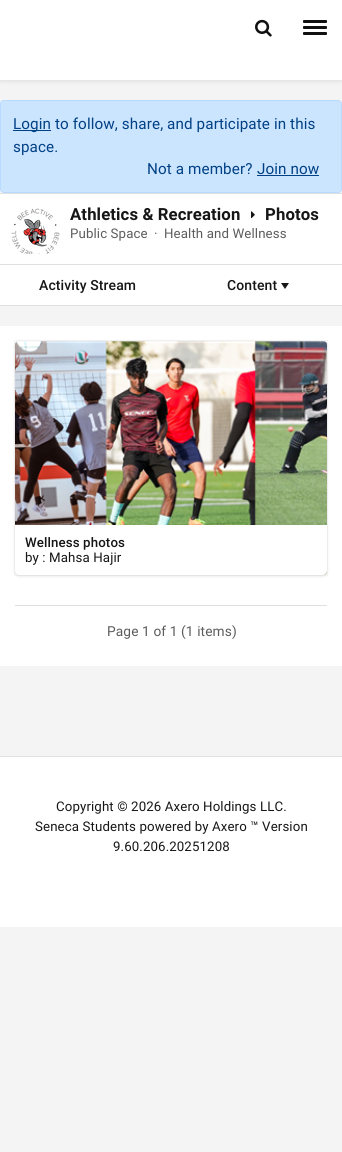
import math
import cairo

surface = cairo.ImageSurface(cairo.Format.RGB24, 342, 1152)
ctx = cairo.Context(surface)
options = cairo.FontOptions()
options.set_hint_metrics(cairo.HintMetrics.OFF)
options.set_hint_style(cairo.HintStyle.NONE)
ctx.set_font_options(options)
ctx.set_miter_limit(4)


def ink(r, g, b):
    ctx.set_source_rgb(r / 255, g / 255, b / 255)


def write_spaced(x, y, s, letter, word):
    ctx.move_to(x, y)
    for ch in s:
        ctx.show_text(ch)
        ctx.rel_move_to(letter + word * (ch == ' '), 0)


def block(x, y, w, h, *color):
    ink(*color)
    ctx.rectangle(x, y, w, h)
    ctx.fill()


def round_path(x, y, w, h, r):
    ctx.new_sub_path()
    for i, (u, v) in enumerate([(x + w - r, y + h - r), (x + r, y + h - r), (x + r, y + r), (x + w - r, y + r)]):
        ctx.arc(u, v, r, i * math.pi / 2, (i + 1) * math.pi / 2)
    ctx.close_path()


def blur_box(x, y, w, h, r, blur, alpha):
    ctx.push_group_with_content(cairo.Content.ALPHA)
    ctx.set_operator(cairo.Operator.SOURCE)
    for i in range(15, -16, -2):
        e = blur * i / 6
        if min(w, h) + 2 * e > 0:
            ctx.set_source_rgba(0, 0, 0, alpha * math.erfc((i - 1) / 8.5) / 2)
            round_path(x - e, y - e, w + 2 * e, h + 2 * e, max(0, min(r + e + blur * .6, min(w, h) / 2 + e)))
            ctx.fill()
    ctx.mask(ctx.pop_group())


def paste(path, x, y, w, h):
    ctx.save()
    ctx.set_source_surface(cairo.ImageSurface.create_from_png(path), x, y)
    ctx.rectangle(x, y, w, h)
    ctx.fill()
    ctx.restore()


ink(244, 244, 244)
ctx.paint()
ink(0, 0, 0)
blur_box(0, 1, 342, 80, 0, 2.5, 0.1)
block(0, 0, 342, 80, 255, 255, 255)
paste("pic1.png", 255, 19, 17, 18)
ink(17, 17, 17)
round_path(303, 20, 24, 3, 1)
ctx.fill()
round_path(303, 26, 24, 3, 1)
ctx.fill()
round_path(303, 32, 24, 3, 1)
ctx.fill()
ink(204, 229, 255)
round_path(0.5, 100.5, 341, 92, 3.5)
ctx.fill_preserve()
ink(184, 218, 255)
ctx.set_line_width(1)
ctx.stroke()
block(13, 130, 38, 1, 0, 64, 133)
ctx.select_font_face("Roboto")
ctx.set_font_size(15.25)
write_spaced(13, 129, "Login to follow, share, and participate in this", 0.1, 0)
write_spaced(13, 152, "space.", 0.1, 0)
write_spaced(147, 174, "Not a member?", 0.1, 0)
write_spaced(257, 174, "Join now", 0.1, 0)
block(257, 175, 62, 1, 0, 64, 133)
block(0, 194, 342, 111, 255, 255, 255)
block(0, 193, 342, 1, 224, 224, 224)
paste("pic2.png", 11, 208, 49, 46)
ctx.select_font_face("Roboto", cairo.FontSlant.NORMAL, cairo.FontWeight.BOLD)
ctx.set_font_size(16.75)
ink(22, 22, 22)
write_spaced(70, 220, "Athletics & Recreation", 0.1, 0)
paste("pic3.png", 251, 211, 4, 8)
write_spaced(265, 220, "Photos", 0.1, 0)
ctx.select_font_face("Roboto")
ctx.set_font_size(13.3)
ink(92, 92, 92)
write_spaced(70, 238, "Public Space", 0.1, 0)
write_spaced(154, 238, "·", 0.1, 0)
write_spaced(164, 238, "Health and Wellness", 0.1, 0)
block(0, 264, 342, 1, 224, 224, 224)
block(0, 305, 342, 1, 224, 224, 224)
ctx.select_font_face("Roboto Medium")
ctx.set_font_size(14)
ink(22, 22, 22)
write_spaced(39, 290, "Activity Stream", 0.1, 0)
write_spaced(227, 290, "Content", 0.1, 0)
ctx.new_path()
ctx.move_to(281, 283)
ctx.line_to(289, 283)
ctx.line_to(285, 289)
ctx.close_path()
ctx.fill()
block(0, 326, 342, 340, 255, 255, 255)
ink(63, 63, 68)
blur_box(15, 342, 312, 234, 4, 1.5, 0.15)
ctx.rectangle(14.5, 340.5, 313, 235)
ctx.set_source_rgba(0.247, 0.247, 0.267, 0.05)
ctx.stroke()
paste("pic4.png", 15, 341, 312, 234)
ink(255, 255, 255)
ctx.new_path()
ctx.move_to(15, 525)
ctx.line_to(327, 525)
ctx.line_to(327, 571)
ctx.curve_to(327, 573, 325, 575, 323, 575)
ctx.line_to(19, 575)
ctx.curve_to(17, 575, 15, 573, 15, 571)
ctx.close_path()
ctx.fill()
ctx.set_font_size(13.3)
ink(22, 22, 22)
write_spaced(25, 547, "Wellness photos", 0.1, 0)
ctx.select_font_face("Roboto")
write_spaced(25, 562, "by : Mahsa Hajir", 0.1, 0)
block(15, 605, 312, 1, 224, 224, 224)
ctx.set_font_size(13.75)
ink(92, 92, 92)
write_spaced(107, 636, "Page 1 of 1 (1 items)", 0.1, 0)
block(0, 757, 342, 170, 255, 255, 255)
block(0, 756, 342, 1, 224, 224, 224)
ctx.set_font_size(13.3)
ink(22, 22, 22)
write_spaced(56, 811, "Copyright © 2026 Axero Holdings LLC.", 0.1, 0)
write_spaced(35, 831, "Seneca Students powered by Axero ™ Version", 0.1, 0)
write_spaced(113, 851, "9.60.206.20251208", 0.1, 0)
surface.write_to_png("screenshot.png")
